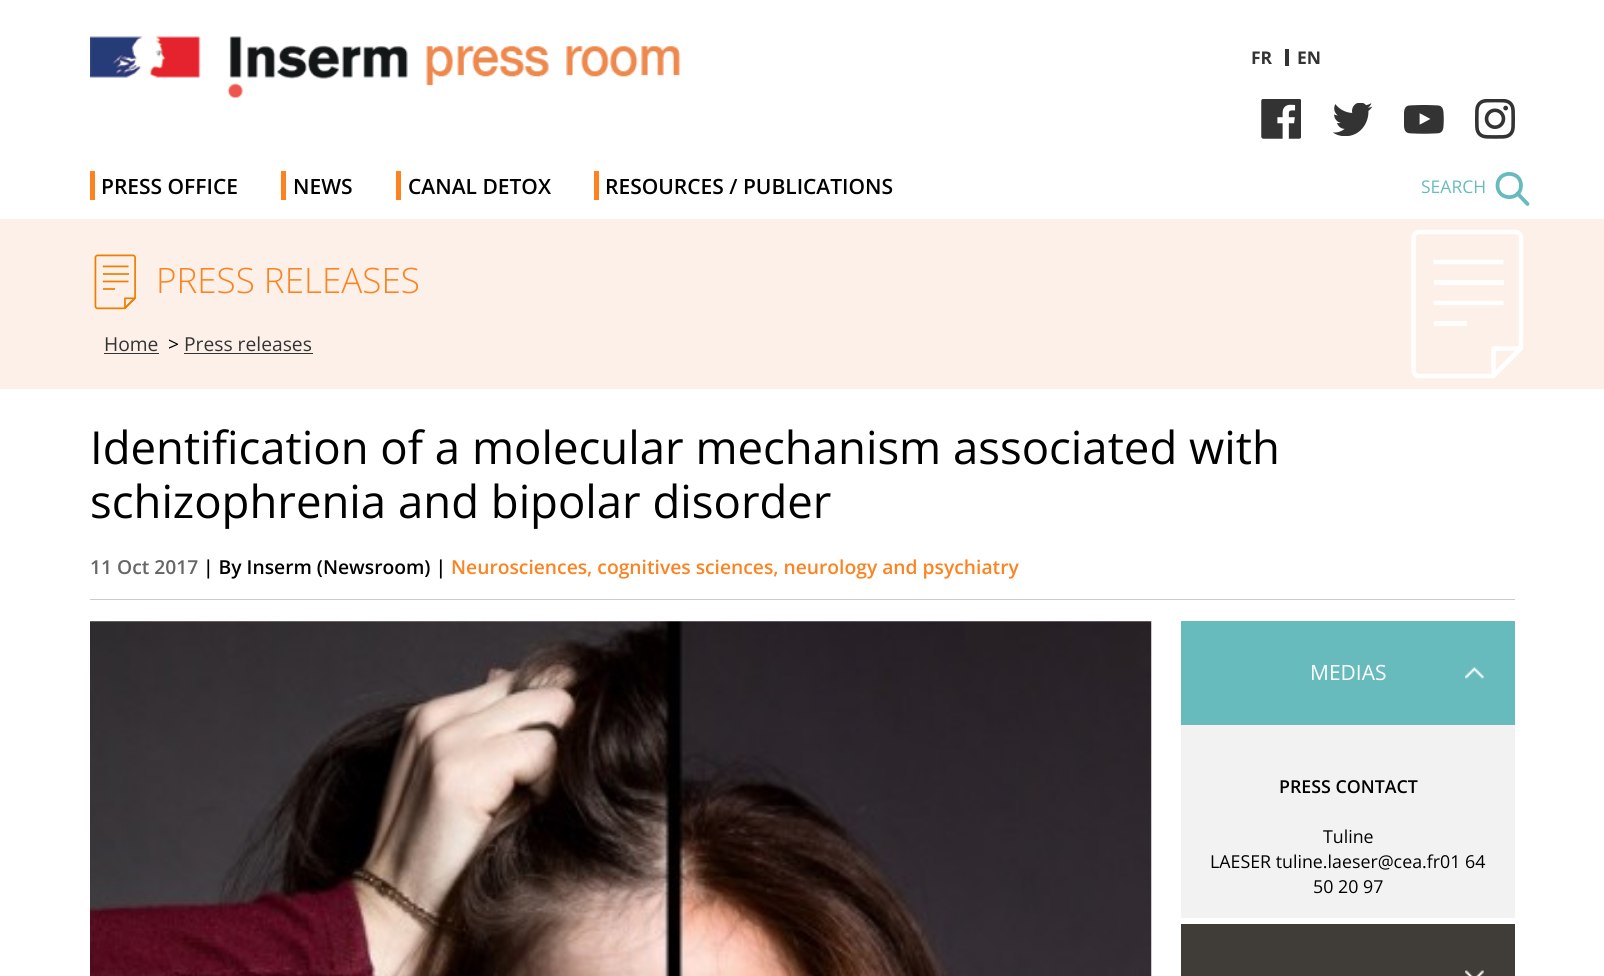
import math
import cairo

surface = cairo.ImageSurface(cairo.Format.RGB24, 1604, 976)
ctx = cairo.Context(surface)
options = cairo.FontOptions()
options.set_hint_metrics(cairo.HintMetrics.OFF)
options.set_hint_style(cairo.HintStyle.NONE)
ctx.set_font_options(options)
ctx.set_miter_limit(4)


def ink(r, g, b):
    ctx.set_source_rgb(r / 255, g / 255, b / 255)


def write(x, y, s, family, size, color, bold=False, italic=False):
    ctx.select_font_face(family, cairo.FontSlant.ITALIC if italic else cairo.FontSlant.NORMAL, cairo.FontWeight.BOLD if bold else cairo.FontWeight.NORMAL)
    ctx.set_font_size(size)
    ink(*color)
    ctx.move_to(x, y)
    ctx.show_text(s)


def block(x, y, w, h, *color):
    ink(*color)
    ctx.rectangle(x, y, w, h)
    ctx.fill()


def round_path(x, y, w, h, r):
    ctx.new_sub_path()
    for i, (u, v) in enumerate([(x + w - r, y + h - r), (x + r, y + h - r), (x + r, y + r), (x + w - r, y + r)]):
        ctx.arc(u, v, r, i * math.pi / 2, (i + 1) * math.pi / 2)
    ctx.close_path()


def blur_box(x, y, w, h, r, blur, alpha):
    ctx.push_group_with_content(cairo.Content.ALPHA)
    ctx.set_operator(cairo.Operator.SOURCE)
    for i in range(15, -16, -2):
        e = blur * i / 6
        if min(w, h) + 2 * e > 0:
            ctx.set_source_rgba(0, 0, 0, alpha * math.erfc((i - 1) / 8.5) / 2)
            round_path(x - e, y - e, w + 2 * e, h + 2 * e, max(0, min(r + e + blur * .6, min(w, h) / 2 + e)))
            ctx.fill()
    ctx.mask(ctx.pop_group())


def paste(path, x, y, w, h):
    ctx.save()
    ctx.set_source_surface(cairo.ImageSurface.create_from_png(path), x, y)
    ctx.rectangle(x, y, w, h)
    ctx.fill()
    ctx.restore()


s1 = dict(family="Open Sans", size=17.5, color=(51, 51, 51), bold=True)
s2 = dict(family="Open Sans SemiBold", size=21, color=(0, 0, 0))
s3 = dict(family="Open Sans", size=17.5, color=(103, 187, 189))
s4 = dict(family="Open Sans Light", size=35, color=(253, 131, 33))
s5 = dict(family="Open Sans", size=19.25, color=(51, 51, 51))
s6 = dict(family="Open Sans", size=19.25, color=(0, 0, 0))
s7 = dict(family="Open Sans", size=45.5, color=(0, 0, 0))
s8 = dict(family="Open Sans SemiBold", size=19.25, color=(102, 102, 102))
s9 = dict(family="Open Sans SemiBold", size=19.25, color=(0, 0, 0))
s10 = dict(family="Open Sans SemiBold", size=19.25, color=(253, 131, 33))
s11 = dict(family="Open Sans", size=21, color=(255, 255, 255))
s12 = dict(family="Open Sans SemiBold", size=17.8, color=(0, 0, 0))
s13 = dict(family="Open Sans", size=17.8, color=(0, 0, 0))

ink(255, 255, 255)
ctx.paint()
ctx.save()
ctx.set_fill_rule(cairo.FillRule.EVEN_ODD)
ctx.new_path()
ctx.move_to(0, 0)
ctx.line_to(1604, 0)
ctx.line_to(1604, 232)
ctx.line_to(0, 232)
ctx.close_path()
ctx.move_to(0, 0)
ctx.line_to(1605, 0)
ctx.line_to(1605, 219)
ctx.line_to(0, 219)
ctx.close_path()
ctx.clip()
ink(0, 0, 0)
blur_box(0, 0, 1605, 219, 0, 4, 0.4)
ctx.restore()
paste("pic1.png", 90, 36, 591, 62)
write(1251, 64, "FR", **s1)
block(1285, 49, 4, 17, 51, 51, 51)
write(1297, 64, "EN", **s1)
paste("pic2.png", 1261, 99, 40, 40)
paste("pic3.png", 1333, 103, 40, 33)
paste("pic4.png", 1404, 105, 40, 29)
paste("pic5.png", 1475, 99, 40, 40)
block(90, 171, 5, 29, 253, 131, 33)
write(101, 194, "PRESS OFFICE", **s2)
block(101, 218, 137, 1, 255, 255, 255)
block(281, 171, 5, 29, 253, 131, 33)
write(293, 194, "NEWS", **s2)
block(293, 218, 60, 1, 255, 255, 255)
block(396, 171, 5, 29, 253, 131, 33)
write(408, 194, "CANAL DETOX", **s2)
block(408, 218, 142, 1, 255, 255, 255)
block(594, 171, 5, 29, 253, 131, 33)
write(605, 194, "RESOURCES / PUBLICATIONS", **s2)
block(605, 218, 288, 1, 255, 255, 255)
ctx.new_path()
ctx.move_to(1521, 185.5)
ctx.curve_to(1521, 201, 1497.5, 201, 1497.5, 185.5)
ctx.curve_to(1497.5, 170, 1521, 170, 1521, 185.5)
ctx.close_path()
ink(103, 187, 189)
ctx.set_line_width(3.8)
ctx.set_line_join(cairo.LineJoin.ROUND)
ctx.stroke()
ctx.new_path()
ctx.move_to(1517.5, 193.5)
ctx.line_to(1527.5, 204)
ctx.set_line_cap(cairo.LineCap.ROUND)
ctx.stroke()
write(1421, 193, "SEARCH", **s3)
block(0, 219, 1604, 170, 252, 240, 232)
ctx.new_path()
ctx.move_to(1521, 348)
ctx.line_to(1493, 376)
ctx.line_to(1419, 376)
ctx.curve_to(1419, 376, 1414, 376.5, 1413.5, 370.5)
ctx.line_to(1413.5, 238)
ctx.curve_to(1413.5, 238, 1413.5, 232.5, 1419, 232)
ctx.line_to(1515.5, 232)
ctx.curve_to(1515.5, 232, 1520.5, 231.5, 1521, 237.5)
ctx.close_path()
ink(255, 255, 255)
ctx.set_line_width(4.5)
ctx.set_line_cap(cairo.LineCap.BUTT)
ctx.set_line_join(cairo.LineJoin.MITER)
ctx.stroke()
ctx.new_path()
ctx.move_to(1493.5, 375.5)
ctx.line_to(1520.5, 348.5)
ctx.line_to(1493.5, 348.5)
ctx.close_path()
ctx.set_line_join(cairo.LineJoin.ROUND)
ctx.stroke()
ctx.new_path()
ctx.move_to(1433.5, 262)
ctx.line_to(1503.5, 262)
ctx.set_line_join(cairo.LineJoin.MITER)
ctx.stroke()
block(1434, 280, 70, 5, 255, 254, 253)
ctx.new_path()
ctx.move_to(1433.5, 303)
ctx.line_to(1503.5, 303)
ink(255, 255, 255)
ctx.stroke()
block(1434, 321, 33, 5, 255, 254, 253)
paste("pic6.png", 94, 254, 42, 56)
write(156, 293, "PRESS RELEASES", **s4)
write(104, 351, "Home", **s5)
block(104, 353, 55, 1, 51, 51, 51)
write(168, 351, ">", **s6)
write(184, 351, "Press releases", **s5)
block(184, 353, 129, 1, 51, 51, 51)
write(90, 464, "Identification of a molecular mechanism associated with", **s7)
write(90, 518, "schizophrenia and bipolar disorder", **s7)
block(90, 599, 1425, 1, 204, 204, 204)
write(90, 574, "11 Oct 2017", **s8)
write(203, 574, "| By Inserm (Newsroom) |", **s9)
write(451, 574, "Neurosciences, cognitives sciences, neurology and psychiatry", **s10)
paste("pic7.png", 90, 621, 1062, 355)
block(1181, 621, 334, 104, 103, 187, 189)
paste("pic8.png", 1465, 667, 19, 12)
write(1310, 680, "MEDIAS", **s11)
block(1181, 725, 334, 193, 242, 242, 242)
write(1279, 793, "PRESS CONTACT", **s12)
write(1323, 843, "Tuline", **s13)
write(1210, 868, "LAESER tuline.laeser@cea.fr01 64", **s13)
write(1313, 893, "50 20 97", **s13)
block(1181, 924, 334, 52, 64, 60, 55)
paste("pic9.png", 1465, 970, 19, 6)
surface.write_to_png("screenshot.png")
